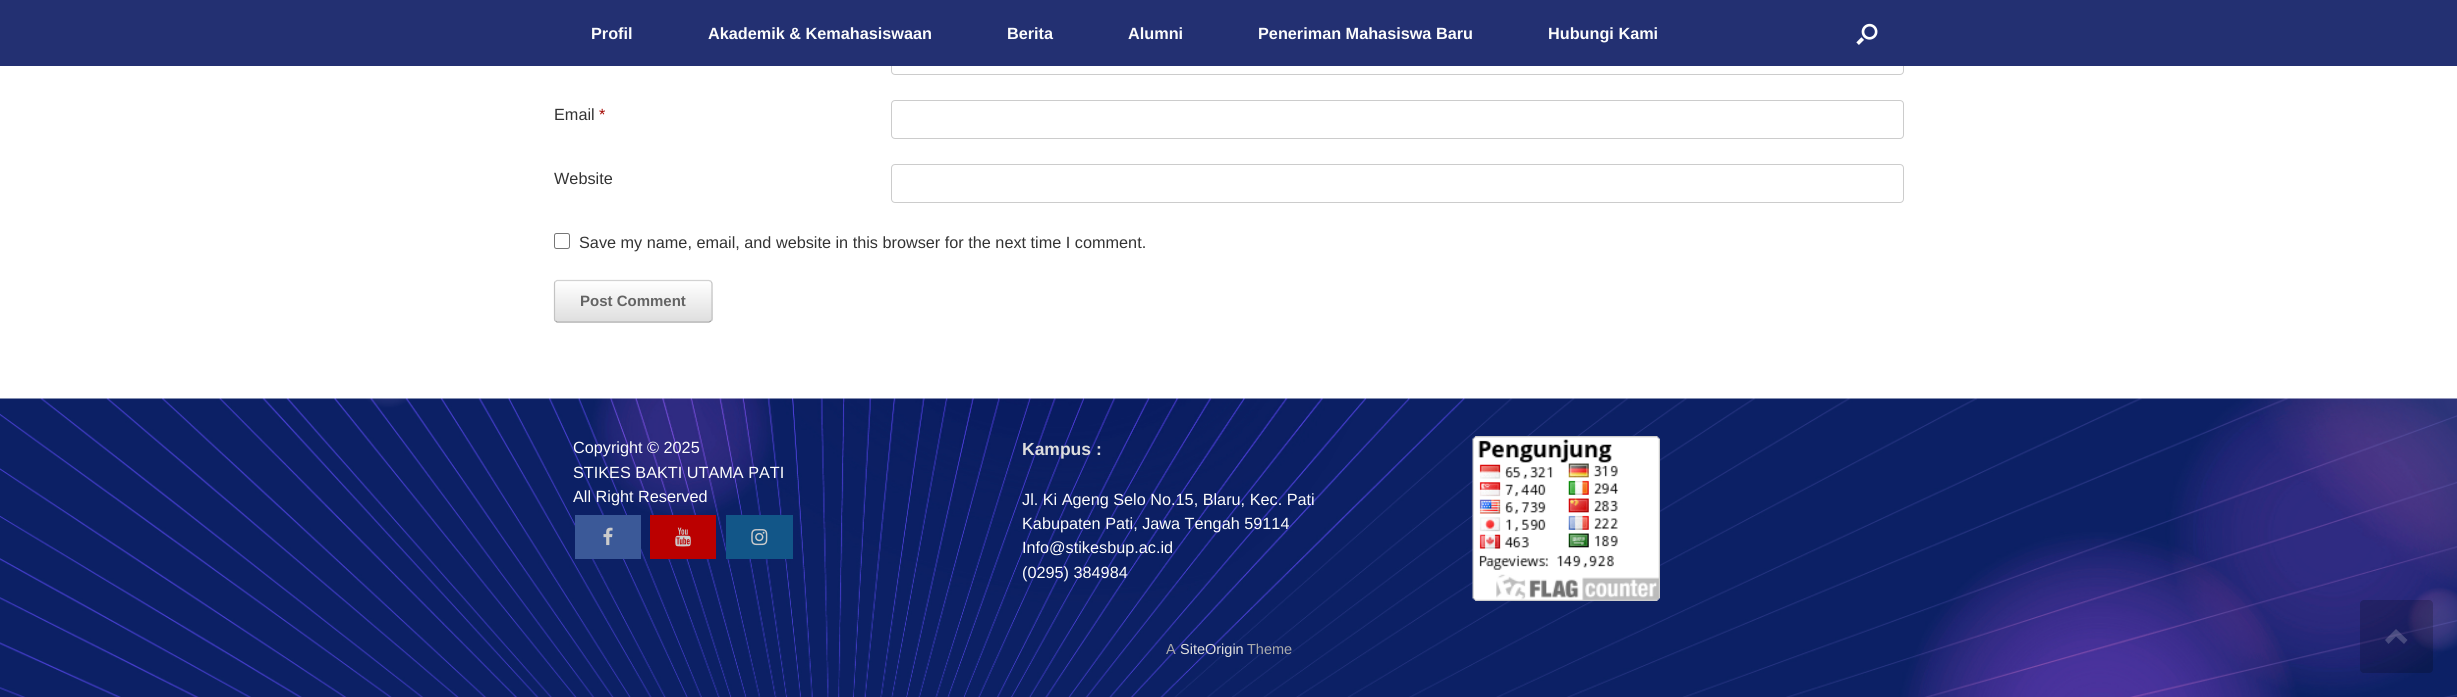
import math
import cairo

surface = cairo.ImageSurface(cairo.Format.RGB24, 2457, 697)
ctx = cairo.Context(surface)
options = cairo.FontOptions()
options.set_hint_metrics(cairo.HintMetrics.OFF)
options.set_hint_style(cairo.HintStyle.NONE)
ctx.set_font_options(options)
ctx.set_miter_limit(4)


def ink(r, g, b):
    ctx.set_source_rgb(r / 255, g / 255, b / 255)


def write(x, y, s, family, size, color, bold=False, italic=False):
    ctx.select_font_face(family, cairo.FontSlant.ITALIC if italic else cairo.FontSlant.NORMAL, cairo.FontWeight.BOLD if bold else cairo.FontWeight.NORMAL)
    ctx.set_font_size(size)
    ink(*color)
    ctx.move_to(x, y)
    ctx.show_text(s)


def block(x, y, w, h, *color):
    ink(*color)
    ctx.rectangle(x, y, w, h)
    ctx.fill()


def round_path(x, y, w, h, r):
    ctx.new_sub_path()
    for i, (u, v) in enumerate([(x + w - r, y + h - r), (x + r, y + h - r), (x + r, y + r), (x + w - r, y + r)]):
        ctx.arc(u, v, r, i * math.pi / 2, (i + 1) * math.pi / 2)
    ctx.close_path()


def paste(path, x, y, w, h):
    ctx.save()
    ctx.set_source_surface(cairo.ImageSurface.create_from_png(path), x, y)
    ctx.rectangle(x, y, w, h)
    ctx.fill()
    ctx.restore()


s1 = dict(family="Liberation Sans", size=16.25, color=(252, 252, 252), bold=True)
s2 = dict(family="Liberation Sans", size=16.25, color=(51, 51, 51))
s3 = dict(family="Liberation Sans", size=16.25, color=(164, 8, 2))
s4 = dict(family="Liberation Sans", size=15, color=(100, 100, 100), bold=True)
s5 = dict(family="Liberation Sans", size=16.25, color=(252, 252, 252))
s6 = dict(family="Liberation Sans", size=17.5, color=(221, 221, 221), bold=True)
s7 = dict(family="Liberation Sans", size=14.5, color=(170, 170, 170))
s8 = dict(family="Liberation Sans", size=14.5, color=(221, 221, 221))

ink(255, 255, 255)
ctx.paint()
round_path(891.5, 36.5, 1012, 38, 3.5)
ink(204, 204, 204)
ctx.set_line_width(1)
ctx.stroke()
block(0, 0, 2457, 66, 35, 48, 114)
write(591, 39, "Profil", **s1)
write(708, 39, "Akademik & Kemahasiswaan", **s1)
write(1007, 39, "Berita", **s1)
write(1128, 39, "Alumni", **s1)
write(1258, 39, "Peneriman Mahasiswa Baru", **s1)
write(1548, 39, "Hubungi Kami", **s1)
paste("pic1.png", 1856, 23, 22, 22)
write(554, 120, "Email", **s2)
write(599, 120, "*", **s3)
round_path(891.5, 100.5, 1012, 38, 3.5)
ink(204, 204, 204)
ctx.stroke()
write(554, 184, "Website", **s2)
round_path(891.5, 164.5, 1012, 38, 3.5)
ink(204, 204, 204)
ctx.stroke()
round_path(554.5, 233.5, 15, 15, 2)
ink(118, 118, 118)
ctx.stroke()
write(579, 248, "Save my name, email, and website in this browser for the next time I comment.", **s2)
ctx.save()
round_path(554, 280, 159, 43, 4)
ctx.clip()
gradient = cairo.LinearGradient(555, 281, 555, 241)
gradient.add_color_stop_rgba(0, 0.875, 0.875, 0.875, 1)
gradient.add_color_stop_rgba(1, 1, 1, 1, 1)
ctx.set_source(gradient)
ctx.rectangle(554, 280, 159, 1)
ctx.fill()
gradient = cairo.LinearGradient(555, 321, 555, 281)
gradient.add_color_stop_rgba(0, 0.875, 0.875, 0.875, 1)
gradient.add_color_stop_rgba(1, 1, 1, 1, 1)
ctx.set_source(gradient)
ctx.rectangle(554, 281, 159, 40)
ctx.fill()
ctx.restore()
ctx.new_path()
ctx.move_to(555.5, 281.5)
ctx.line_to(557, 280.5)
ctx.line_to(683.5, 280.5)
ctx.line_to(709, 280.5)
ctx.line_to(711, 281.5)
ink(210, 210, 210)
ctx.set_line_width(1.2)
ctx.stroke()
ctx.new_path()
ctx.move_to(711, 281.5)
ctx.curve_to(711.5, 282, 712, 283, 712, 284)
ctx.line_to(712, 319)
ctx.curve_to(712, 319.5, 711.5, 320.5, 711, 321)
ink(195, 195, 195)
ctx.stroke()
ctx.new_path()
ctx.move_to(711, 321)
ctx.line_to(709, 322)
ctx.line_to(557, 322)
ctx.line_to(555.5, 321)
ink(159, 159, 159)
ctx.stroke()
ctx.new_path()
ctx.move_to(555.5, 321)
ctx.curve_to(554.5, 320.5, 554.5, 319.5, 554.5, 319)
ctx.line_to(554.5, 284)
ctx.curve_to(554.5, 283, 554.5, 282, 555.5, 281.5)
ink(195, 195, 195)
ctx.stroke()
write(580, 306, "Post Comment", **s4)
paste("pic2.png", 0, 398, 2457, 299)
write(573, 453, "Copyright © 2025", **s5)
write(573, 478, "STIKES BAKTI UTAMA PATI", **s5)
write(573, 502, "All Right Reserved", **s5)
block(575, 515, 66, 44, 59, 89, 152)
paste("pic3.png", 603, 527, 10, 19)
block(650, 515, 66, 44, 187, 0, 0)
paste("pic4.png", 675, 527, 16, 20)
block(726, 515, 67, 44, 18, 86, 136)
paste("pic5.png", 751, 529, 17, 17)
write(1022, 455, "Kampus :", **s6)
write(1022, 505, "Jl. Ki Ageng Selo No.15, Blaru, Kec. Pati", **s5)
write(1022, 529, "Kabupaten Pati, Jawa Tengah 59114", **s5)
write(1022, 553, "Info@stikesbup.ac.id", **s5)
write(1022, 578, "(0295) 384984", **s5)
paste("pic6.png", 1472, 436, 188, 165)
write(1166, 654, "A", **s7)
write(1180, 654, "SiteOrigin", **s8)
write(1247, 654, "Theme", **s7)
ctx.set_source_rgba(0, 0, 0, 0.2)
round_path(2360, 600, 73, 73, 4)
ctx.fill()
ctx.set_source_rgba(1, 1, 1, 0.2)
ctx.new_path()
ctx.move_to(2407.5, 640)
ctx.line_to(2396, 629)
ctx.line_to(2385, 640)
ctx.line_to(2388.5, 644)
ctx.line_to(2396, 636.5)
ctx.line_to(2404, 644)
ctx.close_path()
ctx.fill()
surface.write_to_png("screenshot.png")
